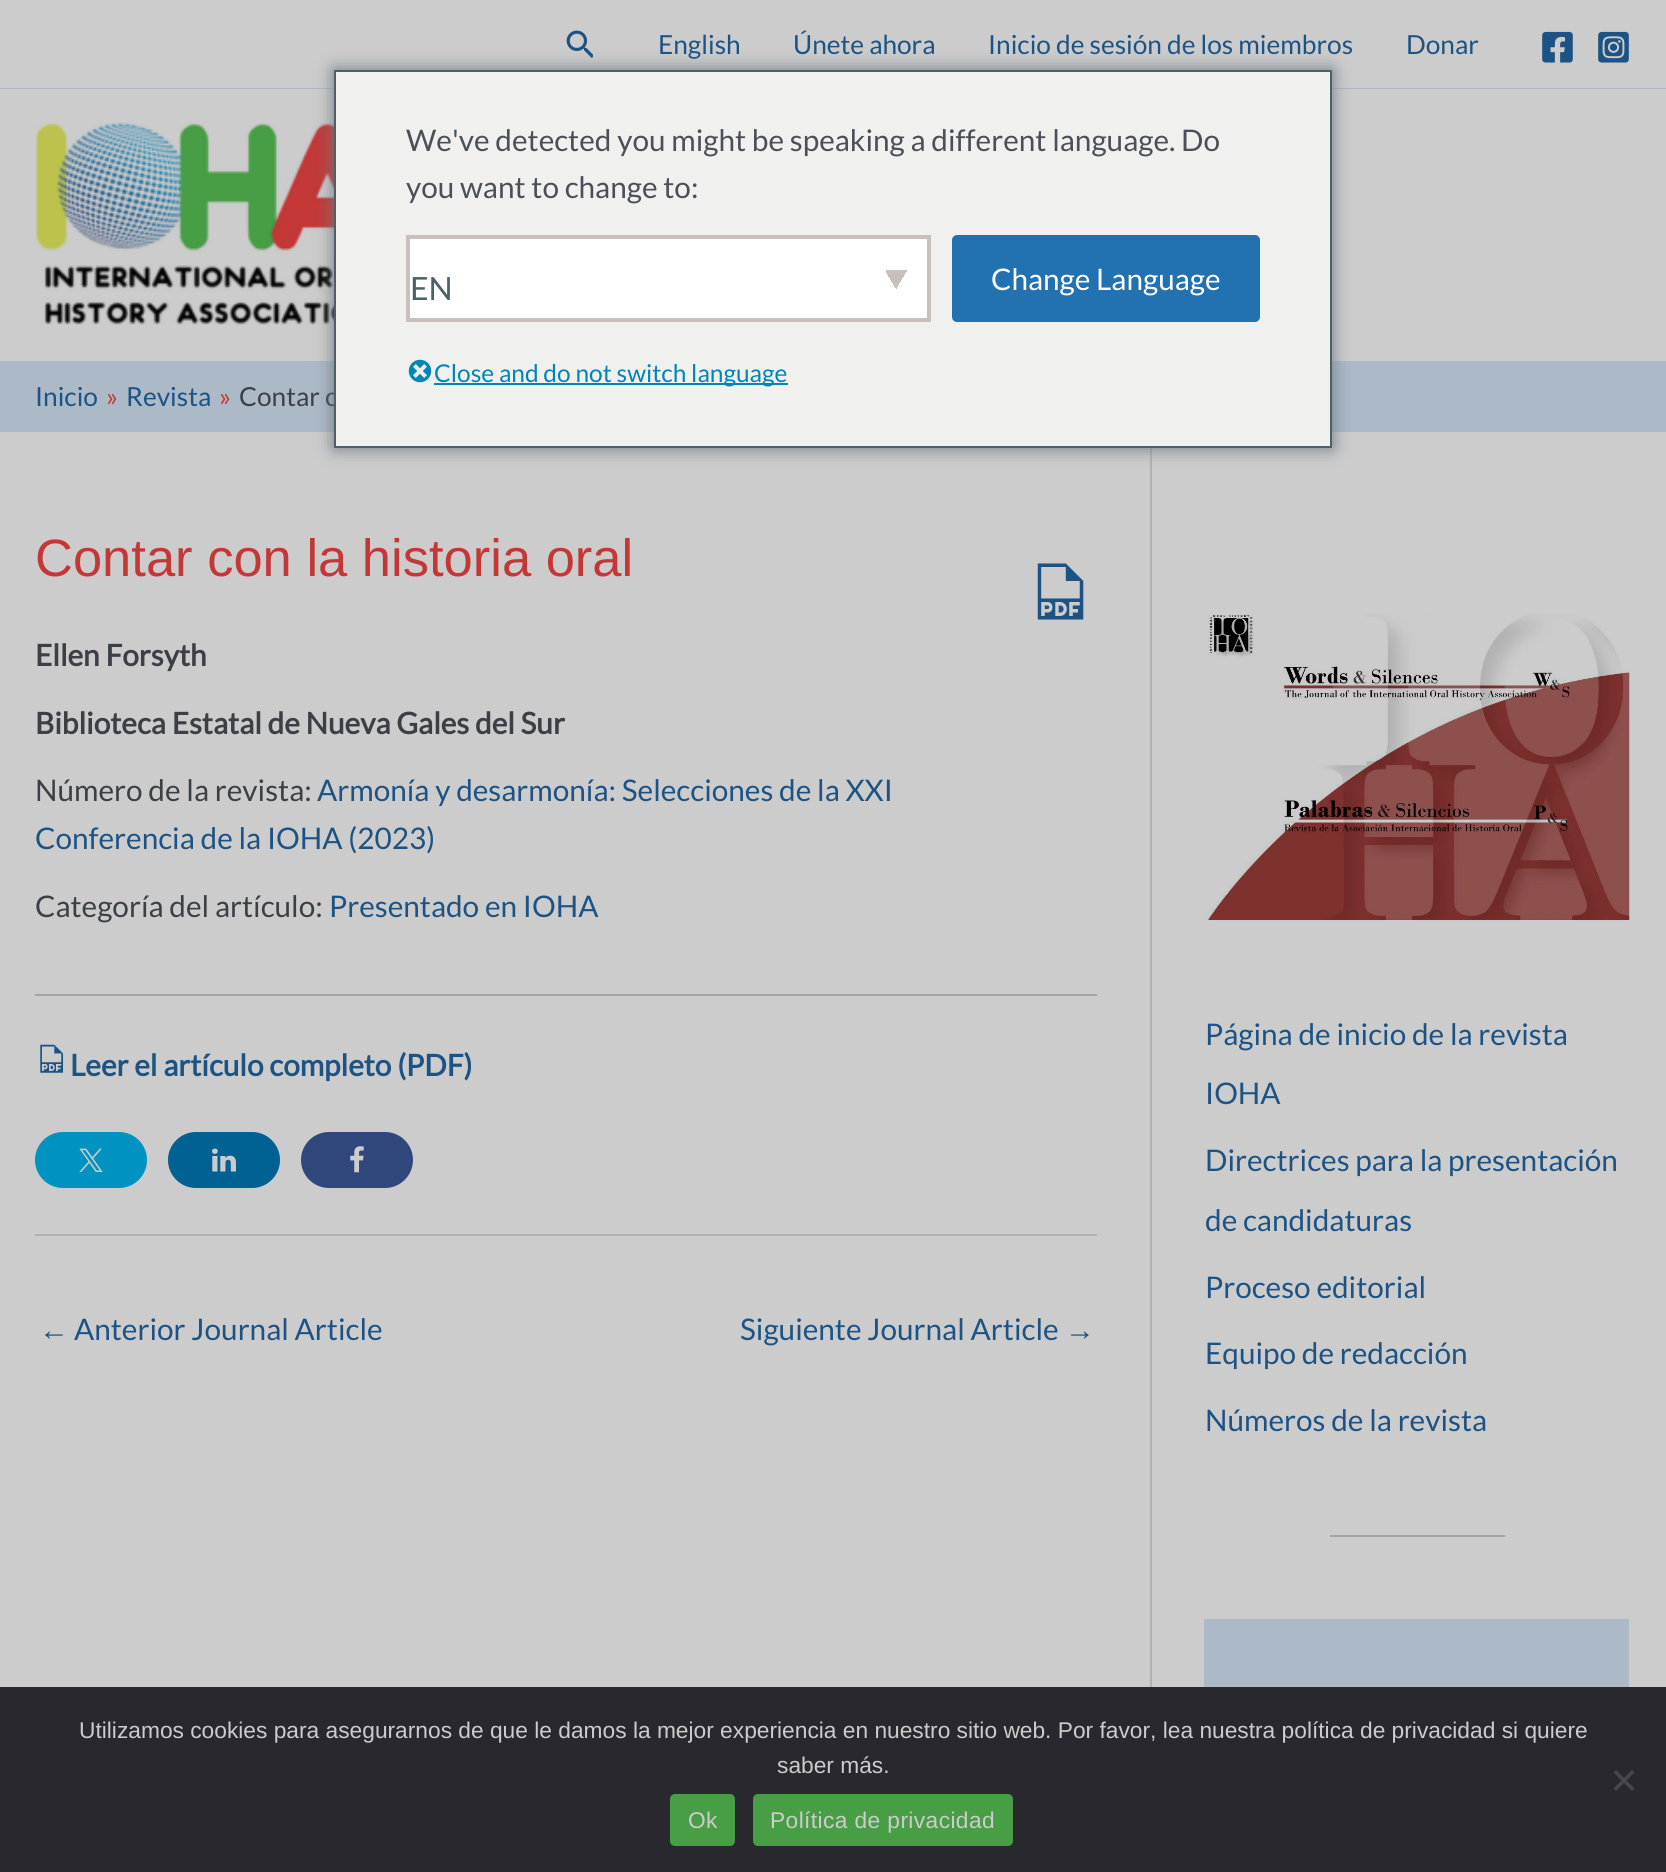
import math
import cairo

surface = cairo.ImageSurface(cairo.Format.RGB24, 1666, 1872)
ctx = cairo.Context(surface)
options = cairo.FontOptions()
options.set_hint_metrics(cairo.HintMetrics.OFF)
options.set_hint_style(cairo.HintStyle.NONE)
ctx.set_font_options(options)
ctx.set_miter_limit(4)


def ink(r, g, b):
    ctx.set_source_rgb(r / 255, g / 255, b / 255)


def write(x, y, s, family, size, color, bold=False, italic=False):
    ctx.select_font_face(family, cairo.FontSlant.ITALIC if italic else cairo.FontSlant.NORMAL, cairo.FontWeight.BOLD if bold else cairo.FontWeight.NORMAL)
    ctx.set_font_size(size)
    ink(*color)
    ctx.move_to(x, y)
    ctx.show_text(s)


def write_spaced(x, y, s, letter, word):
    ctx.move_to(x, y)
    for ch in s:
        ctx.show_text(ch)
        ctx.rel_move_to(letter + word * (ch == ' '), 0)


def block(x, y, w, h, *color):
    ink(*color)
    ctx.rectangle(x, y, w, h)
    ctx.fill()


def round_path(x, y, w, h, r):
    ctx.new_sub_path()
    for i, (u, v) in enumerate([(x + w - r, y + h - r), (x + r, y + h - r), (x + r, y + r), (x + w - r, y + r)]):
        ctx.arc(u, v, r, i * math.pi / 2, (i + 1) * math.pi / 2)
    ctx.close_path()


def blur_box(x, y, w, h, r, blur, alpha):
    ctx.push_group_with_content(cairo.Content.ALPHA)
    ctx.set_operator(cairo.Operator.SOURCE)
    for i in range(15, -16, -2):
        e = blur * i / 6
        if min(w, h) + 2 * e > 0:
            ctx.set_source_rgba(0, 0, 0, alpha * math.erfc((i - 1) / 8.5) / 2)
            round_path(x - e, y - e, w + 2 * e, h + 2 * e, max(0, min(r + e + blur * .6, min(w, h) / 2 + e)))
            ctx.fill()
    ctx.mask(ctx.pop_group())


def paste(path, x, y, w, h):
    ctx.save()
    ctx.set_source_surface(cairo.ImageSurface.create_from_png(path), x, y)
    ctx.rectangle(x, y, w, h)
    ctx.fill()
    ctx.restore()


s1 = dict(family="Lato", size=26.25, color=(28, 83, 132))
s2 = dict(family="Lato", size=26.25, color=(196, 55, 55))
s3 = dict(family="Lato", size=26.25, color=(60, 63, 70))
s4 = dict(family="Liberation Sans", size=52.5, color=(196, 55, 55))
s5 = dict(family="Lato", size=29.75, color=(60, 63, 70), bold=True)
s6 = dict(family="Lato", size=29.75, color=(60, 63, 70))
s7 = dict(family="Lato", size=29.75, color=(28, 83, 132))
s8 = dict(family="Lato", size=29.75, color=(28, 83, 132), bold=True)
s9 = dict(family="Liberation Sans", size=29.75, color=(28, 83, 132))
s10 = dict(family="Lato", size=29.75, color=(75, 79, 88))
s11 = dict(family="Lato", size=32, color=(76, 96, 102))
s12 = dict(family="Lato", size=29.75, color=(255, 255, 255))
s13 = dict(family="Lato", size=24.5, color=(0, 133, 186))
s14 = dict(family="Liberation Sans", size=22.75, color=(204, 204, 204))

ink(204, 204, 204)
ctx.paint()
block(0, 88, 1666, 1, 172, 185, 199)
paste("pic1.png", 566, 30, 27, 28)
write(658, 54, "English", **s1)
write(793, 54, "Únete ahora", **s1)
write(988, 54, "Inicio de sesión de los miembros", **s1)
write(1406, 54, "Donar", **s1)
paste("pic2.png", 1542, 31, 31, 32)
paste("pic3.png", 1598, 31, 31, 32)
paste("pic4.png", 35, 122, 299, 203)
block(0, 361, 1666, 71, 172, 185, 199)
write(35, 406, "Inicio", **s1)
write(106, 406, "»", **s2)
write(126, 406, "Revista", **s1)
write(219, 406, "»", **s2)
write(239, 406, "Contar c", **s3)
block(1150, 448, 2, 1239, 177, 177, 177)
write(35, 576, "Contar con la historia oral", **s4)
write(35, 666, "Ellen Forsyth", **s5)
write(35, 734, "Biblioteca Estatal de Nueva Gales del Sur", **s5)
write(35, 801, "Número de la revista:", **s6)
write(317, 801, "Armonía y desarmonía: Selecciones de la XXI", **s7)
write(35, 849, "Conferencia de la IOHA (2023)", **s7)
write(35, 917, "Categoría del artículo:", **s6)
write(329, 917, "Presentado en IOHA", **s7)
paste("pic5.png", 1037, 563, 47, 57)
block(35, 994, 1062, 2, 163, 163, 163)
paste("pic6.png", 40, 1044, 24, 29)
write(70, 1076, "Leer el artículo completo (PDF)", **s8)
ink(0, 146, 193)
round_path(35, 1132, 112, 56, 28)
ctx.fill()
paste("pic7.png", 79, 1148, 24, 24)
ink(0, 98, 146)
round_path(168, 1132, 112, 56, 28)
ctx.fill()
paste("pic8.png", 212, 1148, 24, 24)
ink(47, 71, 122)
round_path(301, 1132, 112, 56, 28)
ctx.fill()
paste("pic9.png", 350, 1146, 14, 27)
block(35, 1234, 1062, 2, 177, 177, 177)
write(39, 1340, "←", **s9)
write(74, 1340, "Anterior Journal Article", **s7)
write(740, 1340, "Siguiente Journal Article", **s7)
write(1065, 1340, "→", **s9)
paste("pic10.png", 1204, 614, 426, 307)
write(1205, 1045, "Página de inicio de la revista", **s7)
write(1205, 1104, "IOHA", **s7)
write(1205, 1171, "Directrices para la presentación", **s7)
write(1205, 1231, "de candidaturas", **s7)
write(1205, 1298, "Proceso editorial", **s7)
write(1205, 1364, "Equipo de redacción", **s7)
write(1205, 1431, "Números de la revista", **s7)
block(1330, 1535, 175, 2, 163, 163, 163)
block(1204, 1619, 425, 68, 172, 185, 199)
ink(108, 119, 129)
blur_box(334, 70, 998, 378, 0, 9, 1)
ink(240, 240, 238)
ctx.rectangle(335, 71, 996, 376)
ctx.fill_preserve()
ink(76, 96, 102)
ctx.stroke()
write(406, 151, "We've detected you might be speaking a different language. Do", **s10)
write(406, 198, "you want to change to:", **s10)
block(410, 239, 517, 79, 255, 255, 255)
gradient = cairo.LinearGradient(893, 275, 910, 285)
gradient.add_color_stop_rgba(0.5, 0.788, 0.753, 0.733, 1)
gradient.add_color_stop_rgba(0.5, 1, 1, 1, 1)
ctx.set_source(gradient)
ctx.rectangle(896, 270, 11, 19)
ctx.fill()
gradient = cairo.LinearGradient(882, 285, 899, 275)
gradient.add_color_stop_rgba(0.5, 1, 1, 1, 1)
gradient.add_color_stop_rgba(0.5, 0.788, 0.753, 0.733, 1)
ctx.set_source(gradient)
ctx.rectangle(886, 270, 10, 18)
ctx.fill()
ctx.rectangle(408, 237, 521, 83)
ink(201, 192, 187)
ctx.set_line_width(4)
ctx.stroke()
write(410, 300, "EN", **s11)
ink(34, 113, 177)
round_path(953, 236, 306, 85, 4)
ctx.fill_preserve()
ctx.set_line_width(2)
ctx.stroke()
write(991, 290, "Change Language", **s12)
paste("pic11.png", 408, 359, 24, 24)
block(434, 383, 354, 2, 0, 133, 186)
write(434, 382, "Close and do not switch language", **s13)
block(0, 1687, 1666, 185, 40, 40, 46)
write(79, 1738, "Utilizamos cookies para asegurarnos de que le damos la mejor experiencia en nuestro sitio web. Por favor, lea nuestra política de privacidad si quiere", **s14)
write(777, 1773, "saber más.", **s14)
ink(71, 71, 74)
ctx.new_path()
ctx.move_to(1632, 1770)
ctx.line_to(1634.5, 1772.5)
ctx.line_to(1616, 1791)
ctx.line_to(1613.5, 1788.5)
ctx.close_path()
ctx.fill()
ctx.new_path()
ctx.move_to(1613.5, 1772.5)
ctx.line_to(1616, 1770)
ctx.line_to(1634.5, 1788.5)
ctx.line_to(1632, 1791)
ctx.close_path()
ctx.fill()
ink(71, 158, 69)
round_path(670, 1794, 65, 52, 5)
ctx.fill()
ink(204, 204, 204)
write_spaced(688, 1828, "Ok", 0.4, 0)
ink(71, 158, 69)
round_path(753, 1794, 260, 52, 5)
ctx.fill()
ink(204, 204, 204)
write_spaced(770, 1828, "Política de privacidad", 0.4, 0)
surface.write_to_png("screenshot.png")
